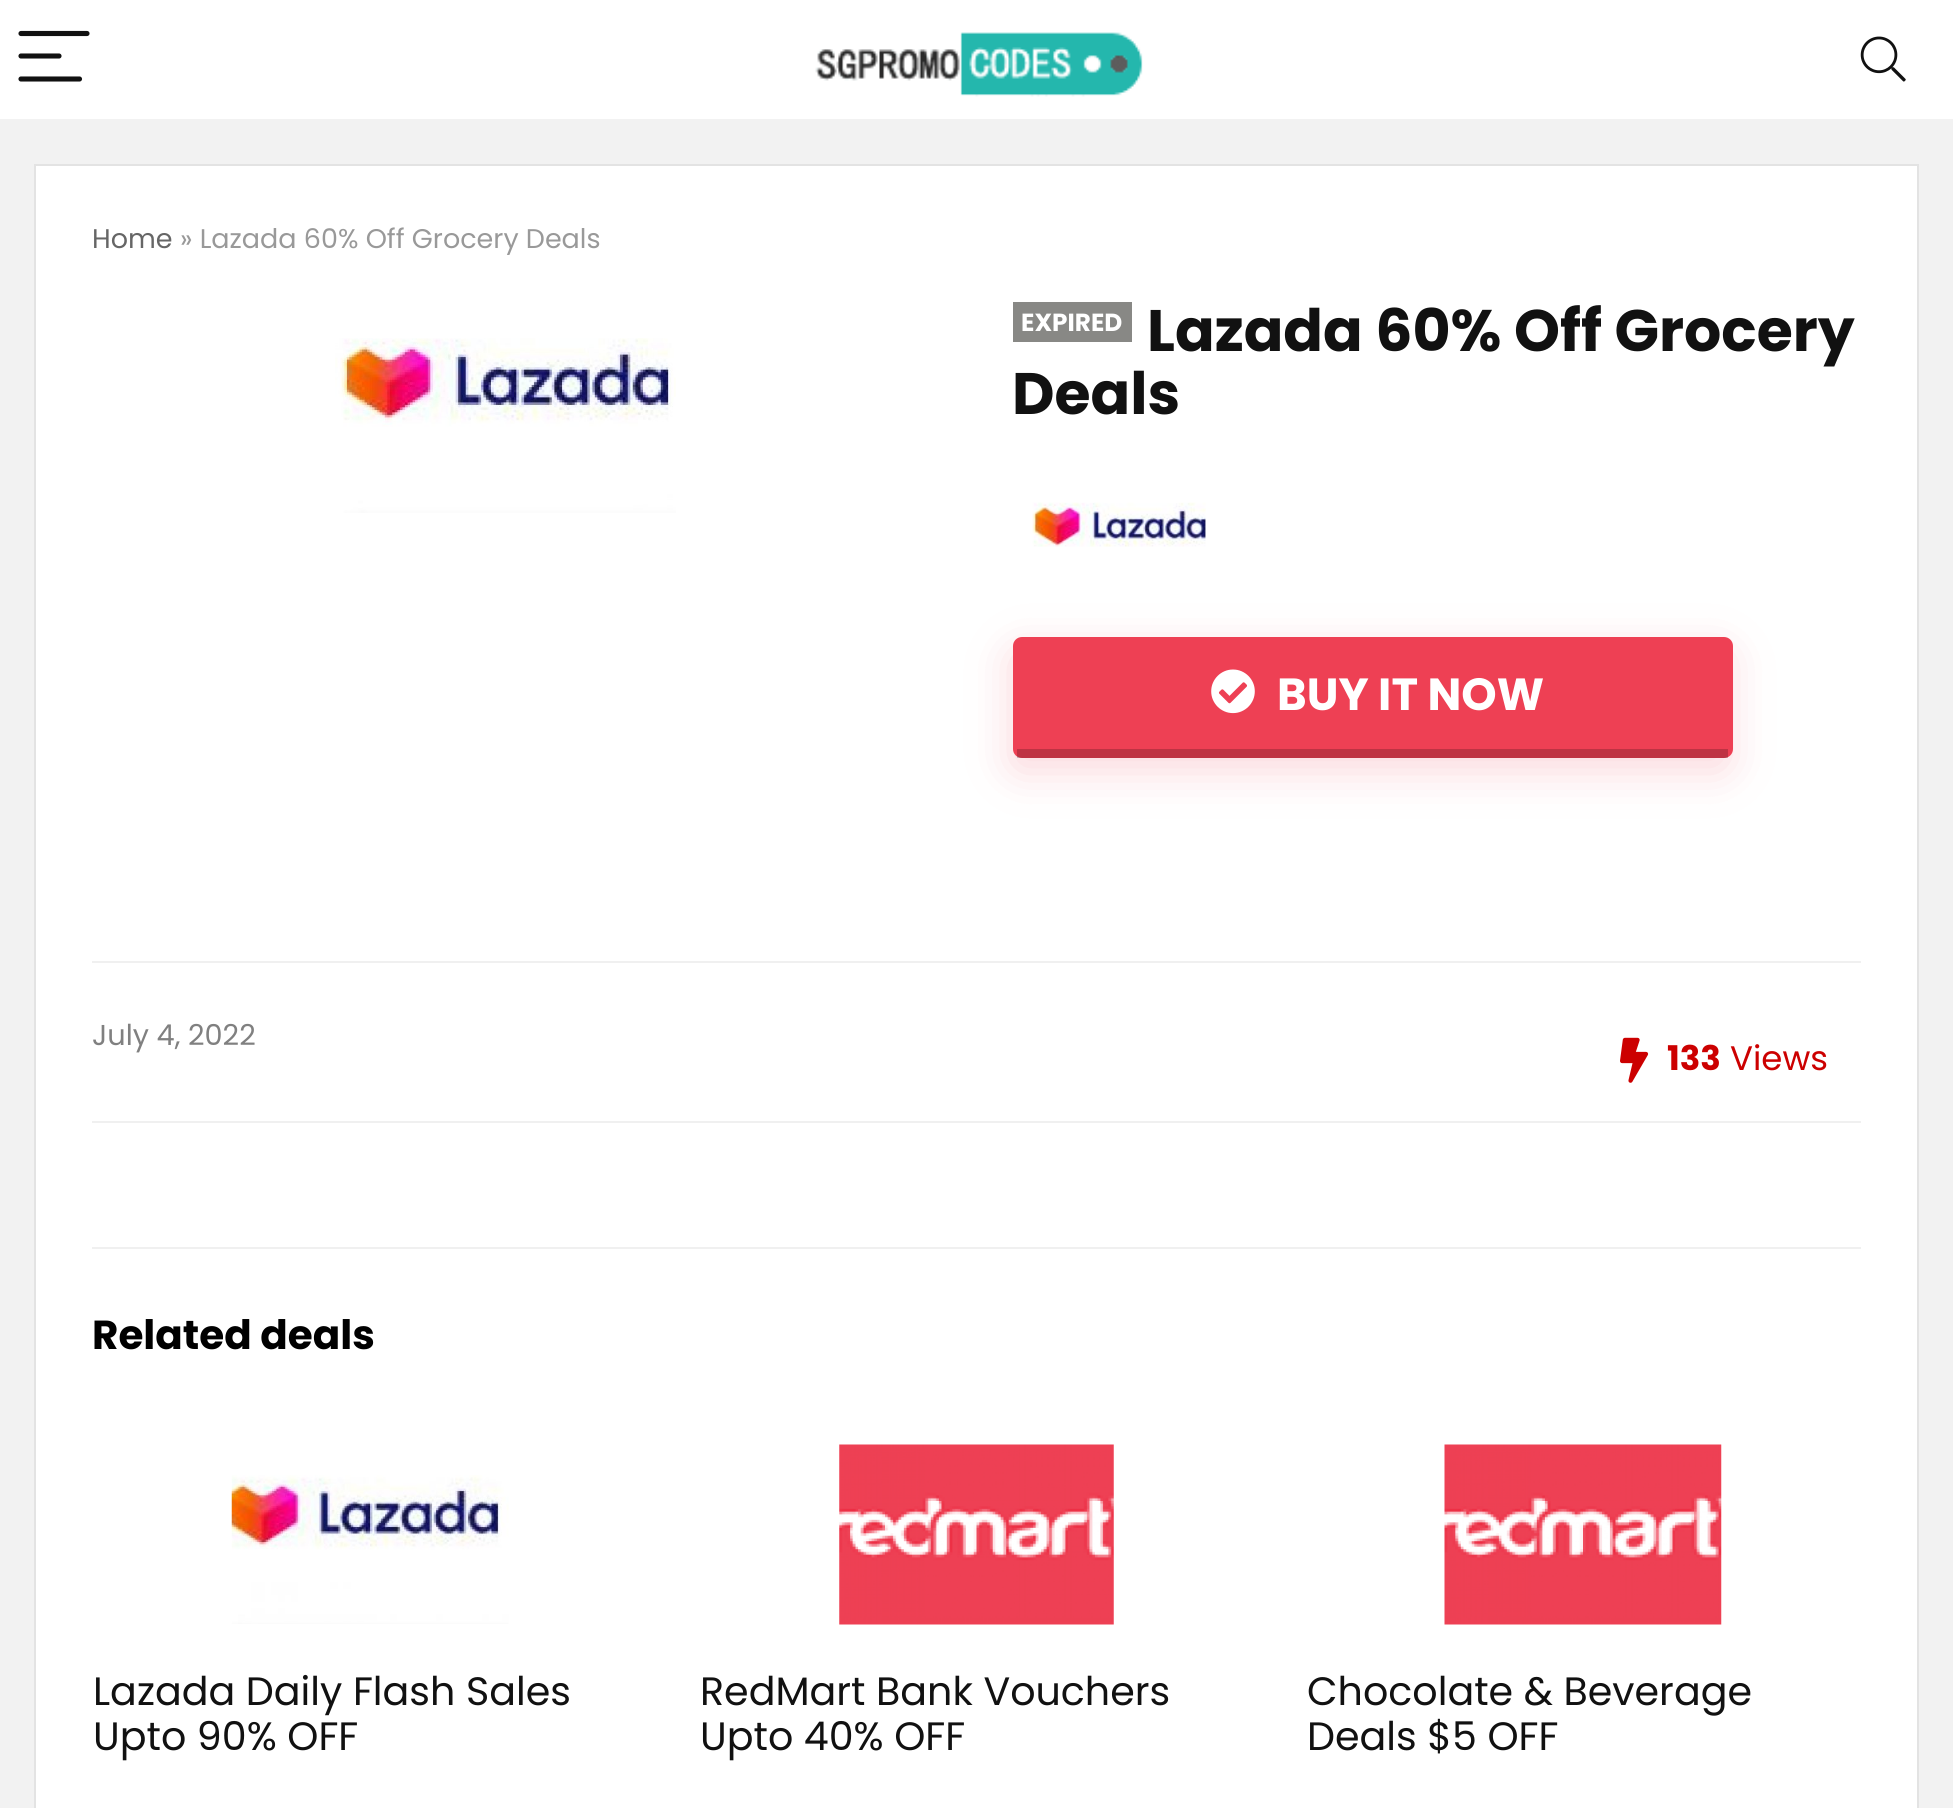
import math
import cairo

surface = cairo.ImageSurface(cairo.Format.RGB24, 1953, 1808)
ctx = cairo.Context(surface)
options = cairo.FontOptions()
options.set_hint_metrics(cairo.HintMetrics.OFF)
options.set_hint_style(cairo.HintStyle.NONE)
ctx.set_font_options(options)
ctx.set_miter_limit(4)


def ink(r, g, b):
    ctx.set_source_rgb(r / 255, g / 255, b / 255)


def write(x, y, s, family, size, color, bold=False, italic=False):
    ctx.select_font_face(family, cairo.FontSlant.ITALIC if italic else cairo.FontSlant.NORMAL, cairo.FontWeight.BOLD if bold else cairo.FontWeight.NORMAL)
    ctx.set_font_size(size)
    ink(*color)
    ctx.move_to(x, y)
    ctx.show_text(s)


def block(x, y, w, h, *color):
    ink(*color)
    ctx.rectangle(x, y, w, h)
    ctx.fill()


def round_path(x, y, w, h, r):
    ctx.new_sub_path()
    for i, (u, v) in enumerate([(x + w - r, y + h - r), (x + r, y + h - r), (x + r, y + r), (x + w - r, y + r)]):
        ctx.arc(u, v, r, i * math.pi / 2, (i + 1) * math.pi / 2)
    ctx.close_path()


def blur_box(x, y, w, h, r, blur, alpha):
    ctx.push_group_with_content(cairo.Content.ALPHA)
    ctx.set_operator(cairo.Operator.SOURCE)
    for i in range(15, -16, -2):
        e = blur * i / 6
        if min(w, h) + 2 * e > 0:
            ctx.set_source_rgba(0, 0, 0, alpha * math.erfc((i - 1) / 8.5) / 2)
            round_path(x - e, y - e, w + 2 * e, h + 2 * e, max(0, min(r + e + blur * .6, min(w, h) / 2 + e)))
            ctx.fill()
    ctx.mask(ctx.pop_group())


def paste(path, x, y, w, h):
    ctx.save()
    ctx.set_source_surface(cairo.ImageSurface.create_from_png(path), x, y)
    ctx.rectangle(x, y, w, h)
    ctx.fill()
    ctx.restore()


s1 = dict(family="Poppins", size=27, color=(102, 102, 102))
s2 = dict(family="Poppins", size=27, color=(153, 153, 153))
s3 = dict(family="Poppins", size=24.75, color=(255, 255, 255), bold=True)
s4 = dict(family="Poppins", size=58.5, color=(17, 17, 17), bold=True)
s5 = dict(family="Poppins", size=45, color=(255, 255, 255), bold=True)
s6 = dict(family="Poppins", size=28.75, color=(128, 128, 128))
s7 = dict(family="Poppins", size=34, color=(204, 0, 0), bold=True)
s8 = dict(family="Poppins", size=34, color=(204, 0, 0))
s9 = dict(family="Poppins", size=40.5, color=(0, 0, 0), bold=True)
s10 = dict(family="Poppins", size=39.6, color=(17, 17, 17))

ink(242, 242, 242)
ctx.paint()
block(0, 0, 1953, 119, 255, 255, 255)
ctx.new_path()
ctx.move_to(21, 33.5)
ctx.line_to(87, 33.5)
ink(17, 17, 17)
ctx.set_line_width(5.1)
ctx.set_line_cap(cairo.LineCap.ROUND)
ctx.stroke()
ctx.new_path()
ctx.move_to(21, 56)
ctx.line_to(59, 56)
ctx.stroke()
ctx.new_path()
ctx.move_to(21, 79)
ctx.line_to(79.5, 79)
ctx.stroke()
paste("pic1.png", 815, 32, 328, 65)
paste("pic2.png", 1860, 36, 46, 46)
ink(255, 255, 255)
ctx.rectangle(35, 165, 1883, 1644)
ctx.fill_preserve()
ink(227, 227, 227)
ctx.set_line_width(2)
ctx.set_line_cap(cairo.LineCap.BUTT)
ctx.stroke()
write(92, 248, "Home", **s1)
write(180, 248, "» Lazada 60% Off Grocery Deals", **s2)
block(92, 961, 1769, 2, 240, 240, 240)
paste("pic3.png", 335, 338, 341, 175)
block(1013, 302, 119, 40, 136, 136, 133)
write(1021, 331, "EXPIRED", **s3)
write(1147, 351, "Lazada 60% Off Grocery", **s4)
write(1012, 414, "Deals", **s4)
paste("pic4.png", 1032, 502, 174, 45)
ink(238, 64, 84)
blur_box(1010, 650, 720, 122, 9, 21.5, 0.2)
ink(238, 64, 84)
round_path(1013, 637, 720, 121, 9)
ctx.fill()
ctx.set_source_rgba(0, 0, 0, 0.2)
ctx.rectangle(1017, 749, 711, 9)
ctx.fill()
paste("pic5.png", 1211, 669, 44, 45)
write(1277, 710, "BUY IT NOW", **s5)
block(92, 1121, 1769, 2, 240, 240, 240)
write(92, 1045, "July 4, 2022", **s6)
paste("pic6.png", 1620, 1037, 29, 46)
write(1667, 1070, "133", **s7)
write(1730, 1070, "Views", **s8)
block(92, 1247, 1769, 2, 240, 240, 240)
write(92, 1349, "Related deals", **s9)
paste("pic7.png", 231, 1475, 278, 149)
write(93, 1705, "Lazada Daily Flash Sales", **s10)
write(93, 1750, "Upto 90% OFF", **s10)
paste("pic8.png", 839, 1444, 275, 181)
write(700, 1705, "RedMart Bank Vouchers", **s10)
write(700, 1750, "Upto 40% OFF", **s10)
paste("pic9.png", 1444, 1444, 278, 181)
write(1307, 1705, "Chocolate & Beverage", **s10)
write(1307, 1750, "Deals $5 OFF", **s10)
surface.write_to_png("screenshot.png")
